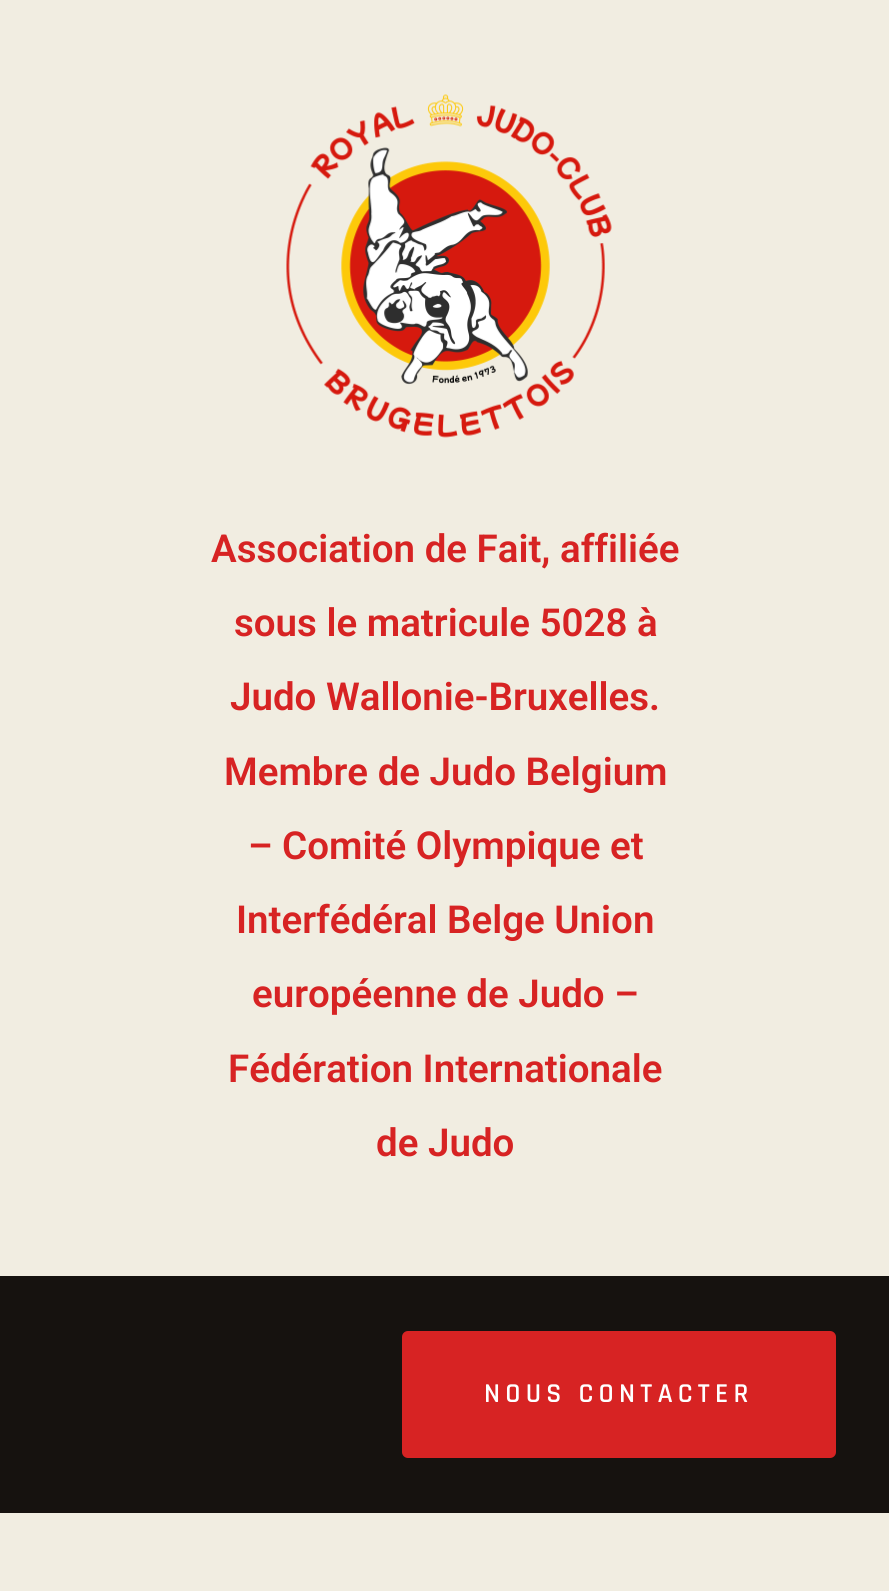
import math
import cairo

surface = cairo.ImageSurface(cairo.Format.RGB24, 889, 1591)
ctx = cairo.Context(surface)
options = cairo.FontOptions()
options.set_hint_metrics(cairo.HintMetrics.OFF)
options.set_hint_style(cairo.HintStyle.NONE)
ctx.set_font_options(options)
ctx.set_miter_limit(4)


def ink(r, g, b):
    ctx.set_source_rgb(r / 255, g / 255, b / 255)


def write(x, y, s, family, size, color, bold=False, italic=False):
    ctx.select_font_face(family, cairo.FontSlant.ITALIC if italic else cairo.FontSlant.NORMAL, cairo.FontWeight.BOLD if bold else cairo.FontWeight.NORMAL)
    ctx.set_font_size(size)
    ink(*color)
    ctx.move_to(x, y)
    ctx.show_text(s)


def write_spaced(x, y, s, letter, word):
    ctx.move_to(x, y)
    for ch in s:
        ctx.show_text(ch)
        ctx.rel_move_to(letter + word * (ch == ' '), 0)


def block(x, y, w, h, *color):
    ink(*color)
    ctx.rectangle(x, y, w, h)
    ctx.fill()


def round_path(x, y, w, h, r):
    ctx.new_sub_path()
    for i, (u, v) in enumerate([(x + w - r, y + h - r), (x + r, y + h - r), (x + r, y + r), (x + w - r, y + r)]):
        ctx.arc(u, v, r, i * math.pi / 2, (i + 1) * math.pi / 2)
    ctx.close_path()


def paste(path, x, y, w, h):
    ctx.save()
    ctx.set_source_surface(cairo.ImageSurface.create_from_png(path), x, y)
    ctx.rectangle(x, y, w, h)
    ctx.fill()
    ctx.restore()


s1 = dict(family="Roboto SemiBold", size=38.5, color=(215, 35, 35))

ink(241, 237, 225)
ctx.paint()
paste("pic1.png", 286, 94, 326, 344)
write(211, 562, "Association de Fait, affiliée", **s1)
write(234, 636, "sous le matricule 5028 à", **s1)
write(230, 710, "Judo Wallonie-Bruxelles.", **s1)
write(224, 785, "Membre de Judo Belgium", **s1)
write(248, 859, "– Comité Olympique et", **s1)
write(236, 933, "Interfédéral Belge Union", **s1)
write(252, 1007, "européenne de Judo –", **s1)
write(228, 1082, "Fédération Internationale", **s1)
write(376, 1156, "de Judo", **s1)
block(0, 1276, 889, 237, 22, 18, 15)
ink(215, 35, 35)
round_path(402, 1331, 434, 127, 6)
ctx.fill()
ctx.select_font_face("Rajdhani SemiBold")
ctx.set_font_size(27.5)
ink(255, 255, 255)
write_spaced(484, 1402, "NOUS CONTACTER", 5.25, 0)
surface.write_to_png("screenshot.png")
